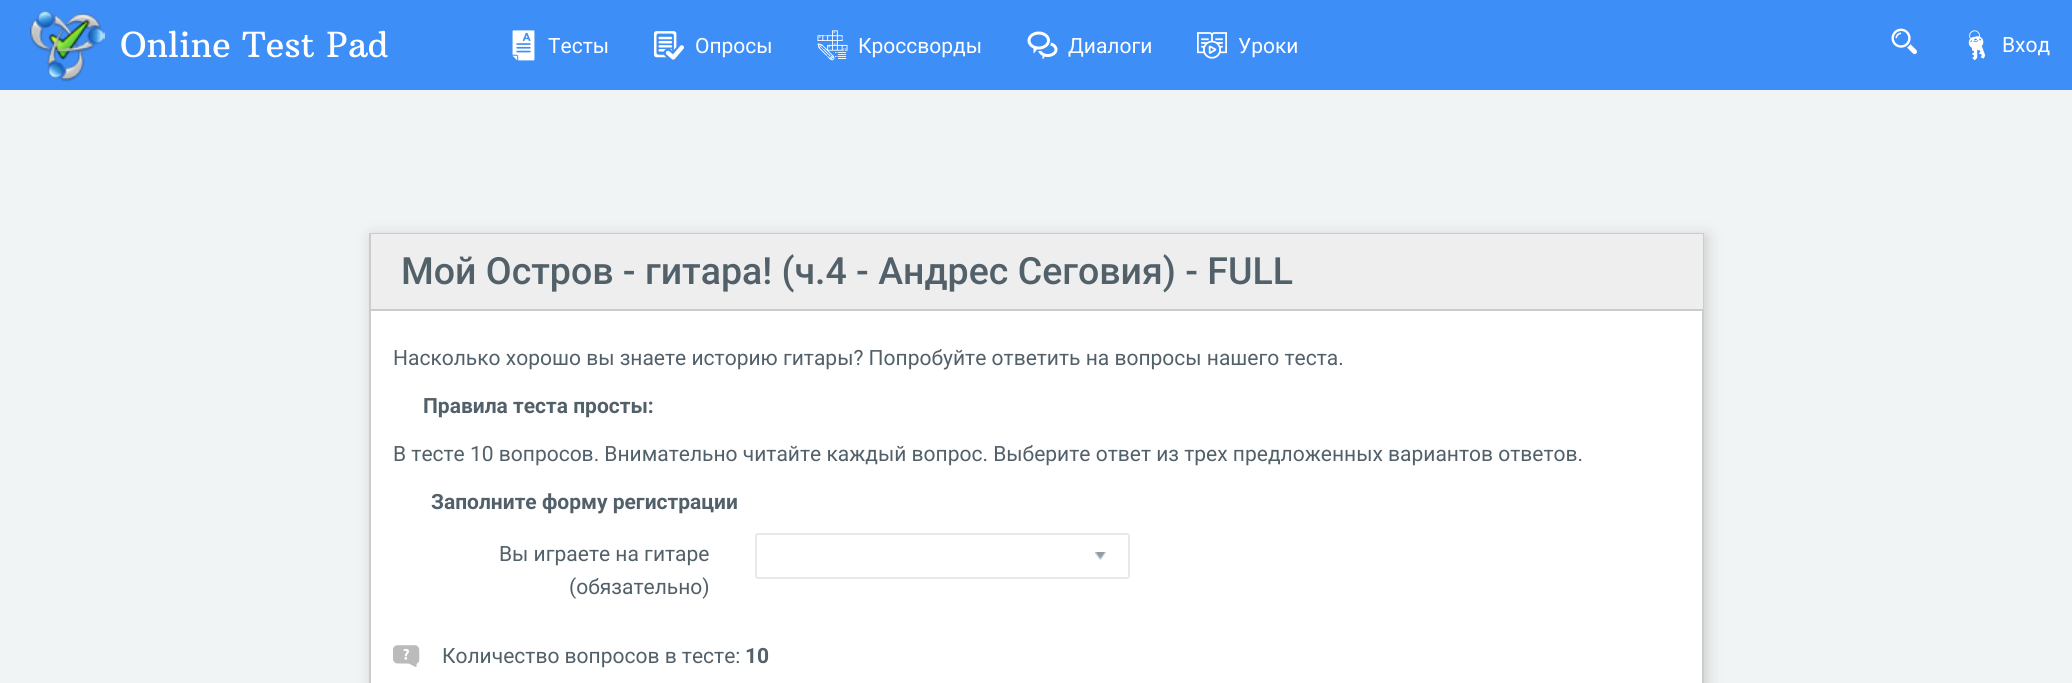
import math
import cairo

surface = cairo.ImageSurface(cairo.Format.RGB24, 2072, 683)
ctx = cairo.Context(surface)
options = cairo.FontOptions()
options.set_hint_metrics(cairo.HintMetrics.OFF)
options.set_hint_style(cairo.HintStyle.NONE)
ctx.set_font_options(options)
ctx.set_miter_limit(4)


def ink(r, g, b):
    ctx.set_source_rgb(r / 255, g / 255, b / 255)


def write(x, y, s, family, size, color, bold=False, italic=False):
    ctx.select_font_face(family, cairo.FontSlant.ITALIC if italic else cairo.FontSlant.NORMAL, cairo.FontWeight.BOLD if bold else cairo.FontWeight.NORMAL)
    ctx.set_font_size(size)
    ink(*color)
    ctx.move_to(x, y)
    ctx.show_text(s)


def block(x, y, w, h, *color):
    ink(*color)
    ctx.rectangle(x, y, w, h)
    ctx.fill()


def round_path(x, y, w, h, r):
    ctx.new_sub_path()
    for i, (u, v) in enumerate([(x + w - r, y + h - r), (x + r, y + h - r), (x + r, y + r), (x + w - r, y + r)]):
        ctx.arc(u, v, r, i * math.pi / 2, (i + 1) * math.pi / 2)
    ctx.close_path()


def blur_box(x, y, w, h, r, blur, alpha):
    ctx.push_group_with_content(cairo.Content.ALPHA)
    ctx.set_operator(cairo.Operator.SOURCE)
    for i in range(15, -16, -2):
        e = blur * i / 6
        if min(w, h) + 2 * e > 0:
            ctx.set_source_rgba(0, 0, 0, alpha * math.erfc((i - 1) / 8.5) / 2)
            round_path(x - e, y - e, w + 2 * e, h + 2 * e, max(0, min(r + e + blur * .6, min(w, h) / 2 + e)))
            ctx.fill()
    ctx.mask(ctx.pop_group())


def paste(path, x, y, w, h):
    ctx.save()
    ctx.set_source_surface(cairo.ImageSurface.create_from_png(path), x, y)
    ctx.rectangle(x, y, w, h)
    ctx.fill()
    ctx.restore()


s1 = dict(family="Arbutus Slab", size=34.5, color=(255, 255, 255))
s2 = dict(family="Roboto", size=21, color=(255, 255, 255))
s3 = dict(family="Roboto Medium", size=37.5, color=(82, 96, 105))
s4 = dict(family="Roboto", size=21, color=(82, 96, 105))
s5 = dict(family="Roboto", size=21, color=(82, 96, 105), bold=True)

ink(62, 142, 247)
ctx.paint()
paste("pic1.png", 30, 10, 75, 72)
write(120, 57, "Online Test Pad", **s1)
paste("pic2.png", 512, 30, 23, 31)
write(548, 53, "Тесты", **s2)
paste("pic3.png", 654, 31, 30, 29)
write(695, 53, "Опросы", **s2)
paste("pic4.png", 817, 30, 31, 31)
write(858, 53, "Кроссворды", **s2)
paste("pic5.png", 1027, 31, 31, 29)
write(1068, 53, "Диалоги", **s2)
paste("pic6.png", 1197, 32, 30, 27)
write(1238, 53, "Уроки", **s2)
paste("pic7.png", 1891, 28, 26, 27)
paste("pic8.png", 1968, 30, 18, 31)
write(2002, 52, "Вход", **s2)
block(0, 90, 2072, 593, 241, 244, 245)
ink(204, 204, 204)
blur_box(372, 236, 1335, 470, 0, 7.5, 1)
block(371, 311, 1331, 372, 255, 255, 255)
ctx.rectangle(370, 234, 1333, 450)
ink(204, 204, 204)
ctx.stroke()
block(371, 234, 1332, 75, 238, 238, 238)
block(371, 309, 1332, 2, 204, 204, 204)
write(401, 284, "Мой Остров - гитара! (ч.4 - Андрес Сеговия) - FULL", **s3)
write(393, 365, "Насколько хорошо вы знаете историю гитары? Попробуйте ответить на вопросы нашего теста.", **s4)
write(423, 413, "Правила теста просты:", **s5)
write(393, 461, "В тесте 10 вопросов. Внимательно читайте каждый вопрос. Выберите ответ из трех предложенных вариантов ответов.", **s4)
write(431, 509, "Заполните форму регистрации", **s5)
write(499, 561, "Вы играете на гитаре", **s4)
write(569, 594, "(обязательно)", **s4)
paste("pic9.png", 1095, 552, 11, 8)
round_path(756, 534, 373, 44, 2)
ink(228, 234, 236)
ctx.stroke()
paste("pic10.png", 393, 645, 27, 22)
write(442, 663, "Количество вопросов в тесте:", **s4)
write(745, 663, "10", **s5)
surface.write_to_png("screenshot.png")
